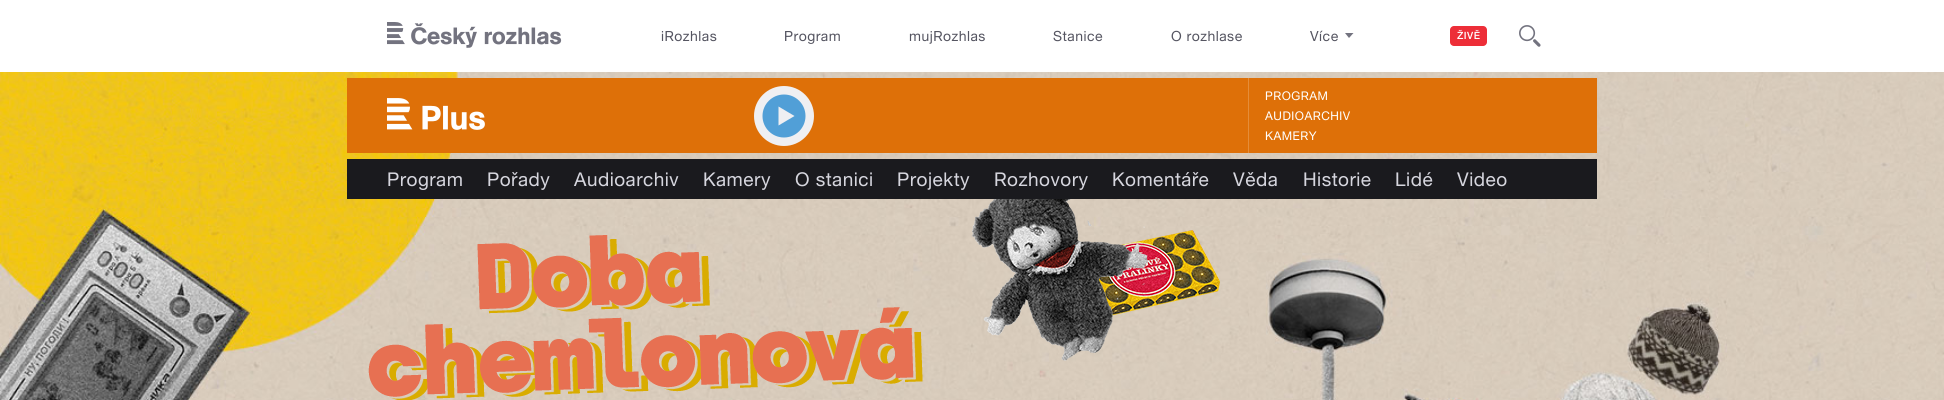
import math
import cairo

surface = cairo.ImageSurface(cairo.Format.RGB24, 1944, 400)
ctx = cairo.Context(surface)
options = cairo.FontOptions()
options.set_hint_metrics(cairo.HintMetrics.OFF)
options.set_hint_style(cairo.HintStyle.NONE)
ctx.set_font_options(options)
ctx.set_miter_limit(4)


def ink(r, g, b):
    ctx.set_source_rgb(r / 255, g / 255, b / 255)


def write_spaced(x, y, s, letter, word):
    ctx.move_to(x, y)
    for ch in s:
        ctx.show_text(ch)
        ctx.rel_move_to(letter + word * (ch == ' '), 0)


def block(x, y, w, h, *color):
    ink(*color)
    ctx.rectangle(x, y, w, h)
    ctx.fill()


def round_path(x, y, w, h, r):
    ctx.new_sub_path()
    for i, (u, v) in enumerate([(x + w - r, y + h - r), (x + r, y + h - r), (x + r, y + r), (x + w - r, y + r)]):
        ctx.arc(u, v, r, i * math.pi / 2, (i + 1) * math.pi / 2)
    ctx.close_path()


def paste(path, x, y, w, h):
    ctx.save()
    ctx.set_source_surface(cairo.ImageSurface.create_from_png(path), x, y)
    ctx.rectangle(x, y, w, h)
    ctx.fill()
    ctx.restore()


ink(255, 255, 255)
ctx.paint()
paste("pic1.png", 387, 22, 175, 26)
ctx.select_font_face("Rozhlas")
ctx.set_font_size(14)
ink(85, 85, 97)
write_spaced(661, 41, "iRozhlas", 0.5, 0)
write_spaced(784, 41, "Program", 0.5, 0)
write_spaced(909, 41, "mujRozhlas", 0.5, 0)
write_spaced(1053, 41, "Stanice", 0.5, 0)
write_spaced(1171, 41, "O rozhlase", 0.5, 0)
write_spaced(1310, 41, "Více", 0.5, 0)
ink(115, 115, 127)
ctx.new_path()
ctx.move_to(1345, 33)
ctx.line_to(1353.5, 33)
ctx.line_to(1349, 38)
ctx.close_path()
ctx.fill()
ink(237, 46, 56)
round_path(1450, 26, 37, 20, 4)
ctx.fill()
ctx.select_font_face("Rozhlas Medium")
ctx.set_font_size(10)
ink(255, 255, 255)
write_spaced(1457, 39, "ŽIVĚ", 0.5, 0)
paste("pic2.png", 1519, 25, 22, 22)
paste("pic3.png", 0, 72, 1944, 328)
paste("pic4.png", 368, 199, 852, 201)
block(347, 78, 1250, 75, 222, 112, 8)
paste("pic5.png", 387, 98, 98, 32)
ink(239, 239, 242)
ctx.arc(784, 116, 30, 0, 2 * math.pi)
ctx.fill()
ink(81, 159, 215)
ctx.arc(784, 116, 21.5, 0, 2 * math.pi)
ctx.fill()
ink(239, 239, 242)
ctx.new_path()
ctx.move_to(778.5, 106.5)
ctx.line_to(794.5, 116)
ctx.line_to(778.5, 125.5)
ctx.close_path()
ctx.fill()
block(1248, 78, 1, 75, 229, 141, 57)
ctx.select_font_face("Rozhlas")
ctx.set_font_size(12)
ink(255, 255, 255)
write_spaced(1265, 100, "PROGRAM", 0.5, 0)
write_spaced(1265, 120, "AUDIOARCHIV", 0.5, 0)
write_spaced(1265, 140, "KAMERY", 0.5, 0)
block(347, 159, 1250, 40, 26, 26, 30)
ctx.set_font_size(19)
ink(214, 214, 222)
write_spaced(387, 186, "Program", 0.5, 0)
write_spaced(487, 186, "Pořady", 0.5, 0)
write_spaced(574, 186, "Audioarchiv", 0.5, 0)
write_spaced(703, 186, "Kamery", 0.5, 0)
write_spaced(795, 186, "O stanici", 0.5, 0)
write_spaced(897, 186, "Projekty", 0.5, 0)
write_spaced(994, 186, "Rozhovory", 0.5, 0)
write_spaced(1112, 186, "Komentáře", 0.5, 0)
write_spaced(1233, 186, "Věda", 0.5, 0)
write_spaced(1303, 186, "Historie", 0.5, 0)
write_spaced(1395, 186, "Lidé", 0.5, 0)
write_spaced(1457, 186, "Video", 0.5, 0)
surface.write_to_png("screenshot.png")
